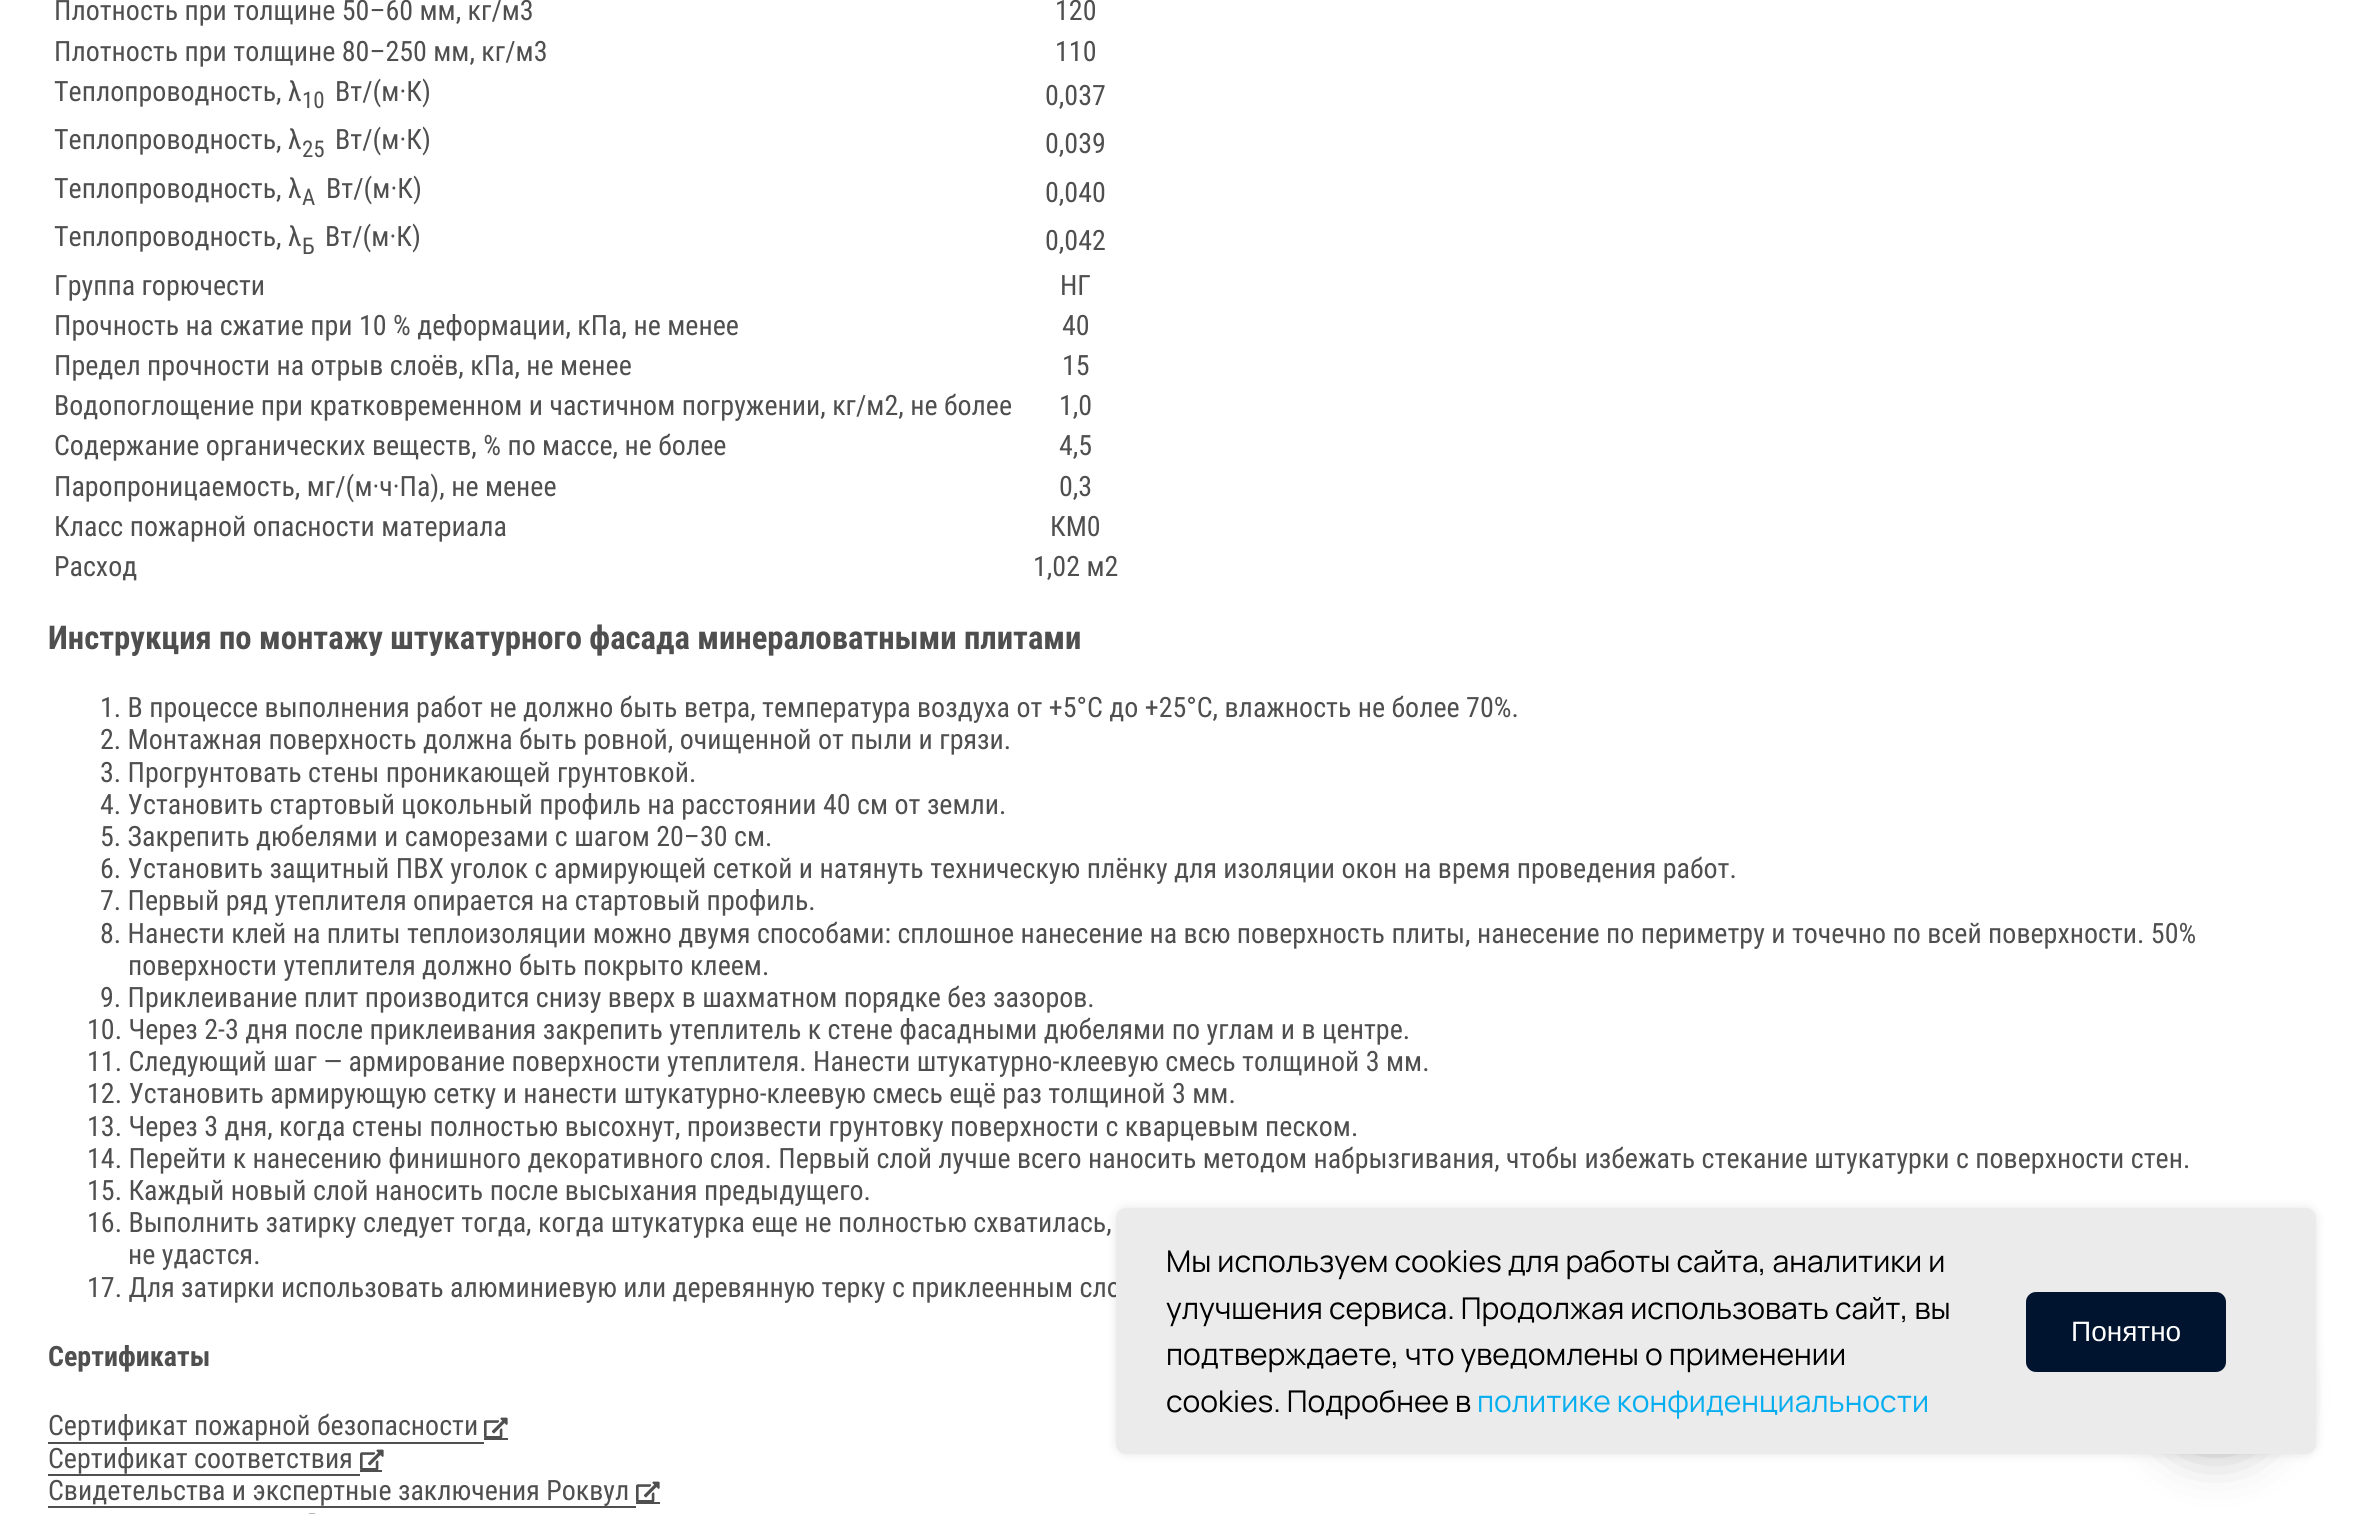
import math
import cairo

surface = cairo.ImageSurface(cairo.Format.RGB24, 2355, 1514)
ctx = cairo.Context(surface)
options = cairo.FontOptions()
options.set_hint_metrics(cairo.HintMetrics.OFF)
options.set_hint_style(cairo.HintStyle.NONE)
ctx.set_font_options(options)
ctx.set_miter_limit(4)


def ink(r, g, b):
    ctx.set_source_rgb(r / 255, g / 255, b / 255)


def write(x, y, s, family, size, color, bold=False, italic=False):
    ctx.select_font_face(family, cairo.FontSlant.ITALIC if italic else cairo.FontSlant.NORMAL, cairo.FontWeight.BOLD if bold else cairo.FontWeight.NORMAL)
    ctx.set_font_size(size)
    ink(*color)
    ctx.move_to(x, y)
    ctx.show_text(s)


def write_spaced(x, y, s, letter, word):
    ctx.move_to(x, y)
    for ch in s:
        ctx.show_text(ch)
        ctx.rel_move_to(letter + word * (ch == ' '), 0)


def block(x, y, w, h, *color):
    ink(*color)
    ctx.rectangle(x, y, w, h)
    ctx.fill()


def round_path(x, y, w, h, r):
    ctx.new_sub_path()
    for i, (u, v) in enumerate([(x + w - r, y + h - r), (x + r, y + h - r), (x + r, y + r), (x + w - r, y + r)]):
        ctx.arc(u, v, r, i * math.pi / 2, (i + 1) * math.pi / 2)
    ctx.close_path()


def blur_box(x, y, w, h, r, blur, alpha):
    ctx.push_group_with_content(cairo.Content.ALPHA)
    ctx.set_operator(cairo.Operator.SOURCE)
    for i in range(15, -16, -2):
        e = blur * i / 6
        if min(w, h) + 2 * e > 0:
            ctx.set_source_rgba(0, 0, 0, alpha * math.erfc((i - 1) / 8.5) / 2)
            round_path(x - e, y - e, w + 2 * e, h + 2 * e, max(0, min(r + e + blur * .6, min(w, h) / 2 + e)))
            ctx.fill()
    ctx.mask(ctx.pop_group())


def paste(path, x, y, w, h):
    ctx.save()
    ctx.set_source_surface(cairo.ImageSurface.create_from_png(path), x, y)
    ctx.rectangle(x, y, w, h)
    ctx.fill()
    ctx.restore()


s1 = dict(family="Roboto Condensed", size=28, color=(79, 79, 79))
s2 = dict(family="Roboto Condensed", size=23, color=(79, 79, 79))
s3 = dict(family="Roboto Condensed", size=28, color=(79, 79, 79), bold=True)
s4 = dict(family="Manrope", size=30, color=(0, 0, 0))
s5 = dict(family="Manrope", size=30, color=(6, 174, 239))
s6 = dict(family="Liberation Sans", size=28, color=(255, 255, 255))

ink(255, 255, 255)
ctx.paint()
write(54, 20, "Плотность при толщине 50–60 мм, кг/м3", **s1)
write(1055, 20, "120", **s1)
write(54, 61, "Плотность при толщине 80–250 мм, кг/м3", **s1)
write(1055, 61, "110", **s1)
write(54, 101, "Теплопроводность, λ", **s1)
write(302, 108, "10", **s2)
write(335, 101, "Вт/(м·К)", **s1)
write(1045, 105, "0,037", **s1)
write(54, 149, "Теплопроводность, λ", **s1)
write(302, 157, "25", **s2)
write(335, 149, "Вт/(м·К)", **s1)
write(1045, 153, "0,039", **s1)
write(54, 198, "Теплопроводность, λ", **s1)
write(302, 205, "A", **s2)
write(326, 198, "Вт/(м·К)", **s1)
write(1045, 202, "0,040", **s1)
write(54, 246, "Теплопроводность, λ", **s1)
write(302, 254, "Б", **s2)
write(325, 246, "Вт/(м·К)", **s1)
write(1045, 250, "0,042", **s1)
write(54, 295, "Группа горючести", **s1)
write(1060, 295, "НГ", **s1)
write(54, 335, "Прочность на сжатие при 10 % деформации, кПа, не менее", **s1)
write(1062, 335, "40", **s1)
write(54, 375, "Предел прочности на отрыв слоёв, кПа, не менее", **s1)
write(1062, 375, "15", **s1)
write(54, 415, "Водопоглощение при кратковременном и частичном погружении, кг/м2, не более", **s1)
write(1059, 415, "1,0", **s1)
write(54, 455, "Содержание органических веществ, % по массе, не более", **s1)
write(1059, 455, "4,5", **s1)
write(54, 496, "Паропроницаемость, мг/(м·ч·Па), не менее", **s1)
write(1059, 496, "0,3", **s1)
write(54, 536, "Класс пожарной опасности материала", **s1)
write(1050, 536, "КМ0", **s1)
write(54, 576, "Расход", **s1)
write(1033, 576, "1,02 м2", **s1)
ctx.select_font_face("Roboto Condensed", cairo.FontSlant.NORMAL, cairo.FontWeight.BOLD)
ctx.set_font_size(32.75)
write_spaced(48, 649, "Инструкция по монтажу штукатурного фасада минераловатными плитами", 0, -0.25)
write(100, 717, "1. В процессе выполнения работ не должно быть ветра, температура воздуха от +5°С до +25°С, влажность не более 70%.", **s1)
write(100, 749, "2. Монтажная поверхность должна быть ровной, очищенной от пыли и грязи.", **s1)
write(100, 782, "3. Прогрунтовать стены проникающей грунтовкой.", **s1)
write(100, 814, "4. Установить стартовый цокольный профиль на расстоянии 40 см от земли.", **s1)
write(100, 846, "5. Закрепить дюбелями и саморезами с шагом 20–30 см.", **s1)
write(100, 878, "6. Установить защитный ПВХ уголок с армирующей сеткой и натянуть техническую плёнку для изоляции окон на время проведения работ.", **s1)
write(100, 910, "7. Первый ряд утеплителя опирается на стартовый профиль.", **s1)
write(100, 943, "8. Нанести клей на плиты теплоизоляции можно двумя способами: сплошное нанесение на всю поверхность плиты, нанесение по периметру и точечно по всей поверхности. 50%", **s1)
write(128, 975, "поверхности утеплителя должно быть покрыто клеем.", **s1)
write(100, 1007, "9. Приклеивание плит производится снизу вверх в шахматном порядке без зазоров.", **s1)
write(87, 1039, "10. Через 2-3 дня после приклеивания закрепить утеплитель к стене фасадными дюбелями по углам и в центре.", **s1)
write(87, 1071, "11. Следующий шаг — армирование поверхности утеплителя. Нанести штукатурно-клеевую смесь толщиной 3 мм.", **s1)
write(87, 1103, "12. Установить армирующую сетку и нанести штукатурно-клеевую смесь ещё раз толщиной 3 мм.", **s1)
write(87, 1136, "13. Через 3 дня, когда стены полностью высохнут, произвести грунтовку поверхности с кварцевым песком.", **s1)
write(87, 1168, "14. Перейти к нанесению финишного декоративного слоя. Первый слой лучше всего наносить методом набрызгивания, чтобы избежать стекание штукатурки с поверхности стен.", **s1)
write(87, 1200, "15. Каждый новый слой наносить после высыхания предыдущего.", **s1)
write(87, 1232, "16. Выполнить затирку следует тогда, когда штукатурка еще не полностью схватилась,", **s1)
write(128, 1264, "не удастся.", **s1)
write(87, 1297, "17. Для затирки использовать алюминиевую или деревянную терку с приклеенным сло", **s1)
write(48, 1366, "Сертификаты", **s3)
block(48, 1442, 436, 2, 79, 79, 79)
block(484, 1438, 24, 2, 79, 79, 79)
write(48, 1435, "Сертификат пожарной безопасности", **s1)
paste("pic1.png", 484, 1417, 24, 21)
block(48, 1474, 312, 2, 79, 79, 79)
block(360, 1470, 22, 2, 79, 79, 79)
write(48, 1468, "Сертификат соответствия", **s1)
paste("pic1.png", 360, 1449, 24, 21)
block(48, 1506, 588, 2, 79, 79, 79)
block(636, 1502, 24, 2, 79, 79, 79)
write(48, 1500, "Свидетельства и экспертные заключения Роквул", **s1)
paste("pic1.png", 636, 1481, 24, 21)
paste("pic2.png", 308, 1513, 8, 1)
ink(0, 0, 0)
blur_box(1116, 1208, 1200, 246, 10, 5, 0.1)
blur_box(2156, 1334, 120, 120, 60, 25, 0.25)
ink(235, 235, 235)
round_path(1116, 1208, 1200, 246, 10)
ctx.fill()
write(1166, 1272, "Мы используем cookies для работы сайта, аналитики и", **s4)
write(1166, 1319, "улучшения сервиса. Продолжая использовать сайт, вы", **s4)
write(1166, 1365, "подтверждаете, что уведомлены о применении", **s4)
write(1166, 1412, "cookies. Подробнее в", **s4)
write(1477, 1412, "политике конфиденциальности", **s5)
ink(1, 20, 47)
round_path(2027, 1293, 198, 78, 9)
ctx.fill_preserve()
ctx.stroke()
write(2071, 1341, "Понятно", **s6)
surface.write_to_png("screenshot.png")
